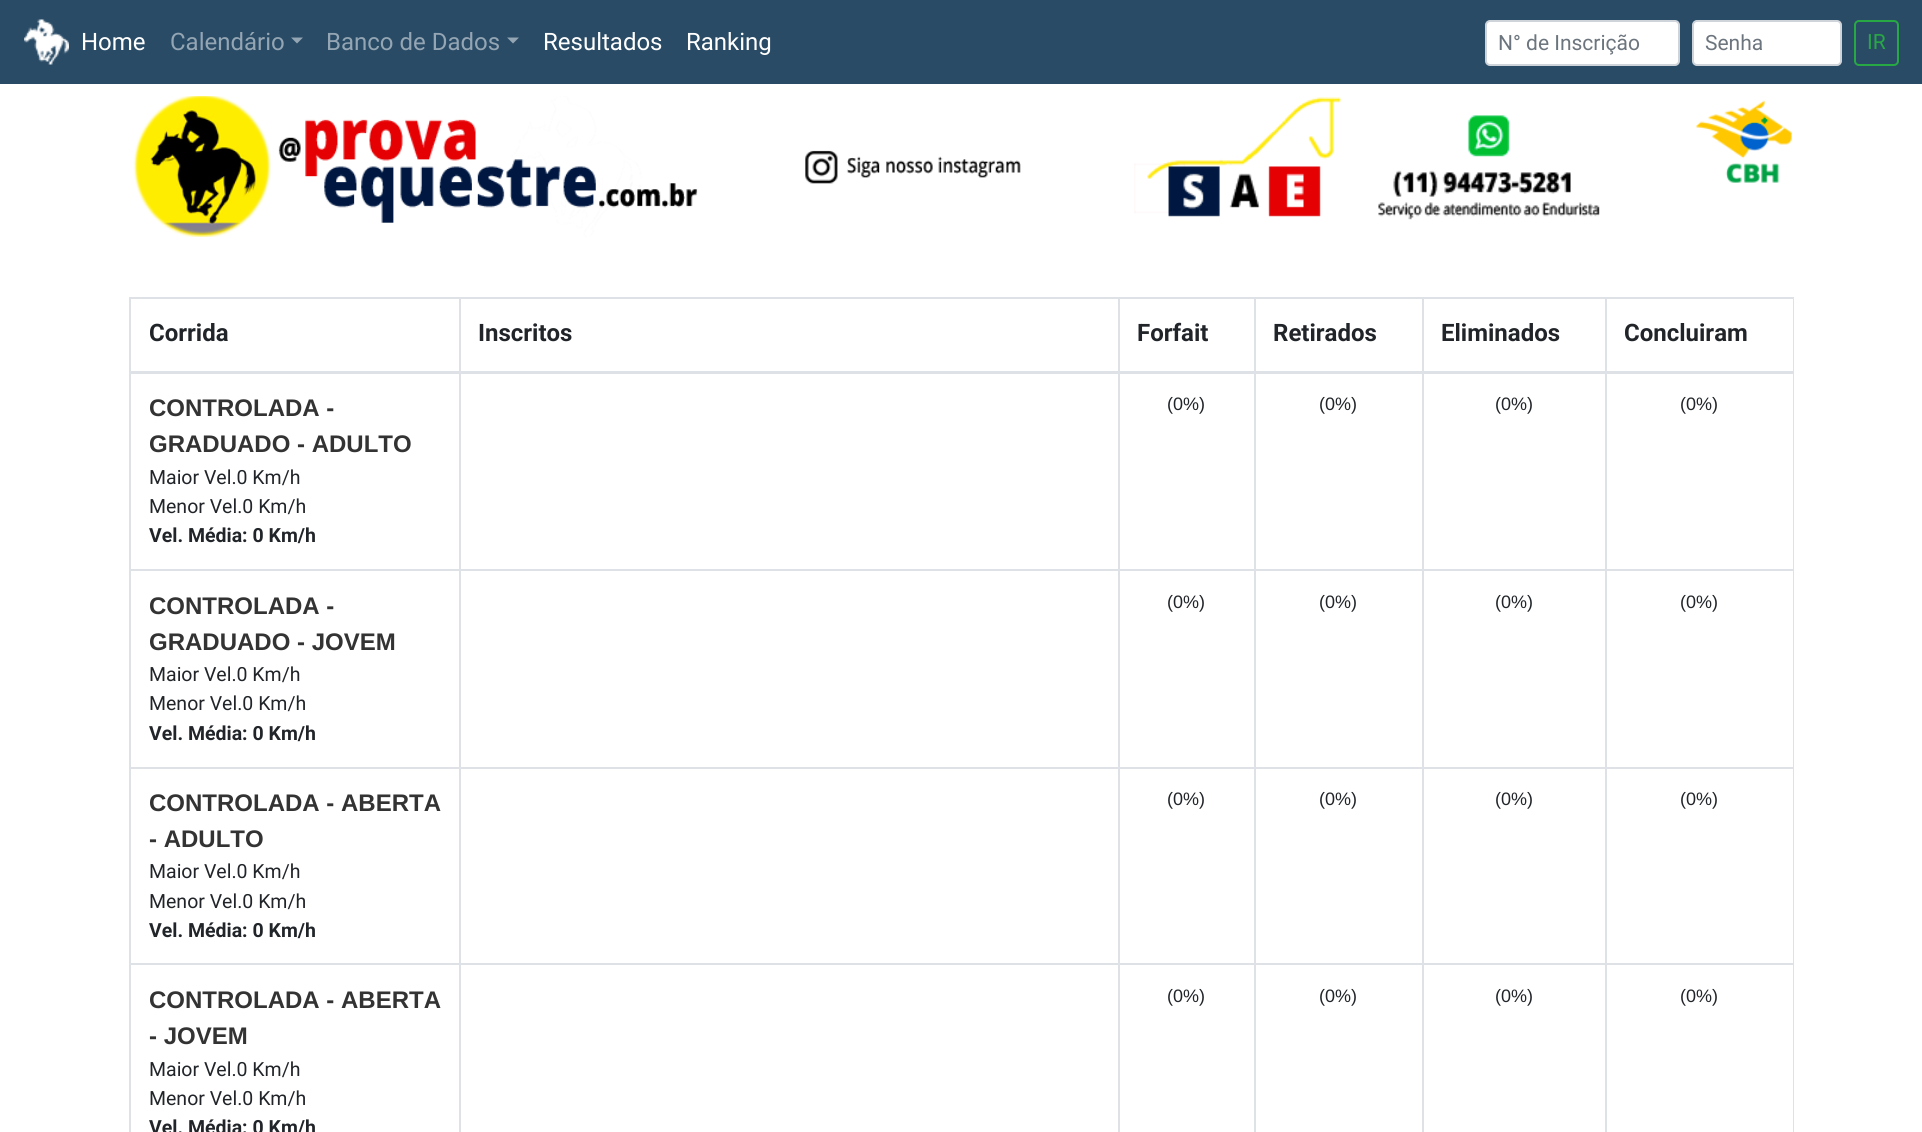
import math
import cairo

surface = cairo.ImageSurface(cairo.Format.RGB24, 1922, 1132)
ctx = cairo.Context(surface)
options = cairo.FontOptions()
options.set_hint_metrics(cairo.HintMetrics.OFF)
options.set_hint_style(cairo.HintStyle.NONE)
ctx.set_font_options(options)
ctx.set_miter_limit(4)


def ink(r, g, b):
    ctx.set_source_rgb(r / 255, g / 255, b / 255)


def write(x, y, s, family, size, color, bold=False, italic=False):
    ctx.select_font_face(family, cairo.FontSlant.ITALIC if italic else cairo.FontSlant.NORMAL, cairo.FontWeight.BOLD if bold else cairo.FontWeight.NORMAL)
    ctx.set_font_size(size)
    ink(*color)
    ctx.move_to(x, y)
    ctx.show_text(s)


def block(x, y, w, h, *color):
    ink(*color)
    ctx.rectangle(x, y, w, h)
    ctx.fill()


def round_path(x, y, w, h, r):
    ctx.new_sub_path()
    for i, (u, v) in enumerate([(x + w - r, y + h - r), (x + r, y + h - r), (x + r, y + r), (x + w - r, y + r)]):
        ctx.arc(u, v, r, i * math.pi / 2, (i + 1) * math.pi / 2)
    ctx.close_path()


def paste(path, x, y, w, h):
    ctx.save()
    ctx.set_source_surface(cairo.ImageSurface.create_from_png(path), x, y)
    ctx.rectangle(x, y, w, h)
    ctx.fill()
    ctx.restore()


s1 = dict(family="Roboto", size=24, color=(255, 255, 255))
s2 = dict(family="Roboto", size=24, color=(148, 165, 179))
s3 = dict(family="Roboto", size=21, color=(108, 117, 125))
s4 = dict(family="Roboto", size=21, color=(40, 167, 69))
s5 = dict(family="Roboto", size=24, color=(33, 37, 41), bold=True)
s6 = dict(family="Liberation Sans", size=24, color=(51, 51, 51), bold=True)
s7 = dict(family="Roboto", size=19.5, color=(33, 37, 41))
s8 = dict(family="Roboto", size=19.5, color=(33, 37, 41), bold=True)
s9 = dict(family="Liberation Sans", size=18, color=(33, 37, 41))

ink(255, 255, 255)
ctx.paint()
block(0, 0, 1922, 84, 41, 75, 102)
paste("pic1.png", 24, 19, 45, 46)
write(81, 50, "Home", **s1)
write(170, 50, "Calendário", **s2)
ctx.new_path()
ctx.move_to(291, 37.5)
ctx.line_to(303, 37.5)
ctx.line_to(297, 43.5)
ctx.close_path()
ctx.fill()
write(326, 50, "Banco de Dados", **s2)
ctx.new_path()
ctx.move_to(507, 37.5)
ctx.line_to(519, 37.5)
ctx.line_to(513, 43.5)
ctx.close_path()
ctx.fill()
write(543, 50, "Resultados", **s1)
write(686, 50, "Ranking", **s1)
round_path(1486, 21, 193, 44, 4)
ctx.fill_preserve()
ink(206, 212, 218)
ctx.stroke()
write(1498, 50, "N° de Inscrição", **s3)
ink(255, 255, 255)
round_path(1693, 21, 148, 44, 4)
ctx.fill_preserve()
ink(206, 212, 218)
ctx.stroke()
write(1705, 50, "Senha", **s3)
round_path(1855, 21, 43, 44, 4)
ink(40, 167, 69)
ctx.stroke()
write(1867, 49, "IR", **s4)
paste("pic2.png", 133, 96, 888, 141)
paste("pic3.png", 1134, 97, 466, 123)
paste("pic4.png", 1696, 100, 96, 83)
block(1605, 297, 189, 2, 222, 226, 230)
block(1605, 569, 189, 2, 222, 226, 230)
block(1605, 767, 189, 2, 222, 226, 230)
block(1605, 963, 189, 2, 222, 226, 230)
block(1605, 963, 2, 169, 222, 226, 230)
block(1422, 963, 185, 2, 222, 226, 230)
block(1605, 767, 2, 198, 222, 226, 230)
block(1422, 767, 185, 2, 222, 226, 230)
block(1605, 569, 2, 199, 222, 226, 230)
block(1422, 569, 185, 2, 222, 226, 230)
block(1605, 371, 2, 199, 222, 226, 230)
block(1605, 297, 2, 75, 222, 226, 230)
block(1422, 297, 185, 2, 222, 226, 230)
block(1422, 963, 2, 169, 222, 226, 230)
block(1254, 963, 170, 2, 222, 226, 230)
block(1422, 767, 2, 198, 222, 226, 230)
block(1254, 767, 170, 2, 222, 226, 230)
block(1422, 569, 2, 199, 222, 226, 230)
block(1254, 569, 170, 2, 222, 226, 230)
block(1422, 371, 2, 199, 222, 226, 230)
block(1422, 297, 2, 75, 222, 226, 230)
block(1254, 297, 170, 2, 222, 226, 230)
block(1254, 963, 2, 169, 222, 226, 230)
block(1118, 963, 138, 2, 222, 226, 230)
block(1254, 767, 2, 198, 222, 226, 230)
block(1118, 767, 138, 2, 222, 226, 230)
block(1254, 569, 2, 199, 222, 226, 230)
block(1118, 569, 138, 2, 222, 226, 230)
block(1254, 371, 2, 199, 222, 226, 230)
block(1254, 297, 2, 75, 222, 226, 230)
block(1118, 297, 138, 2, 222, 226, 230)
block(1118, 963, 2, 169, 222, 226, 230)
block(459, 963, 660, 2, 222, 226, 230)
block(1118, 767, 2, 198, 222, 226, 230)
block(459, 767, 660, 2, 222, 226, 230)
block(1118, 569, 2, 199, 222, 226, 230)
block(459, 569, 660, 2, 222, 226, 230)
block(1118, 371, 2, 199, 222, 226, 230)
block(1118, 297, 2, 75, 222, 226, 230)
block(459, 297, 660, 2, 222, 226, 230)
block(459, 963, 2, 169, 222, 226, 230)
block(129, 963, 332, 2, 222, 226, 230)
block(459, 767, 2, 198, 222, 226, 230)
block(129, 767, 332, 2, 222, 226, 230)
block(459, 569, 2, 199, 222, 226, 230)
block(129, 569, 332, 2, 222, 226, 230)
block(459, 371, 2, 199, 222, 226, 230)
block(459, 297, 2, 75, 222, 226, 230)
block(129, 297, 332, 2, 222, 226, 230)
block(129, 963, 2, 169, 222, 226, 230)
block(129, 767, 2, 198, 222, 226, 230)
block(129, 371, 2, 397, 222, 226, 230)
block(129, 297, 2, 75, 222, 226, 230)
write(149, 341, "Corrida", **s5)
write(478, 341, "Inscritos", **s5)
write(1137, 341, "Forfait", **s5)
write(1273, 341, "Retirados", **s5)
write(1441, 341, "Eliminados", **s5)
block(1793, 963, 1, 169, 222, 226, 230)
block(1793, 767, 1, 198, 222, 226, 230)
block(1793, 371, 1, 397, 222, 226, 230)
block(1793, 297, 1, 75, 222, 226, 230)
block(129, 371, 1665, 3, 222, 226, 230)
write(1624, 341, "Concluiram", **s5)
write(149, 416, "CONTROLADA -", **s6)
write(149, 452, "GRADUADO - ADULTO", **s6)
write(149, 484, "Maior Vel.0 Km/h", **s7)
write(149, 513, "Menor Vel.0 Km/h", **s7)
write(149, 542, "Vel. Média: 0 Km/h", **s8)
write(1167, 410, "(0%)", **s9)
write(1319, 410, "(0%)", **s9)
write(1495, 410, "(0%)", **s9)
write(1680, 410, "(0%)", **s9)
write(149, 614, "CONTROLADA -", **s6)
write(149, 650, "GRADUADO - JOVEM", **s6)
write(149, 681, "Maior Vel.0 Km/h", **s7)
write(149, 710, "Menor Vel.0 Km/h", **s7)
write(149, 740, "Vel. Média: 0 Km/h", **s8)
write(1167, 608, "(0%)", **s9)
write(1319, 608, "(0%)", **s9)
write(1495, 608, "(0%)", **s9)
write(1680, 608, "(0%)", **s9)
write(149, 811, "CONTROLADA - ABERTA", **s6)
write(149, 847, "- ADULTO", **s6)
write(149, 878, "Maior Vel.0 Km/h", **s7)
write(149, 908, "Menor Vel.0 Km/h", **s7)
write(149, 937, "Vel. Média: 0 Km/h", **s8)
write(1167, 805, "(0%)", **s9)
write(1319, 805, "(0%)", **s9)
write(1495, 805, "(0%)", **s9)
write(1680, 805, "(0%)", **s9)
write(149, 1008, "CONTROLADA - ABERTA", **s6)
write(149, 1044, "- JOVEM", **s6)
write(149, 1076, "Maior Vel.0 Km/h", **s7)
write(149, 1105, "Menor Vel.0 Km/h", **s7)
write(149, 1134, "Vel. Média: 0 Km/h", **s8)
write(1167, 1002, "(0%)", **s9)
write(1319, 1002, "(0%)", **s9)
write(1495, 1002, "(0%)", **s9)
write(1680, 1002, "(0%)", **s9)
surface.write_to_png("screenshot.png")
